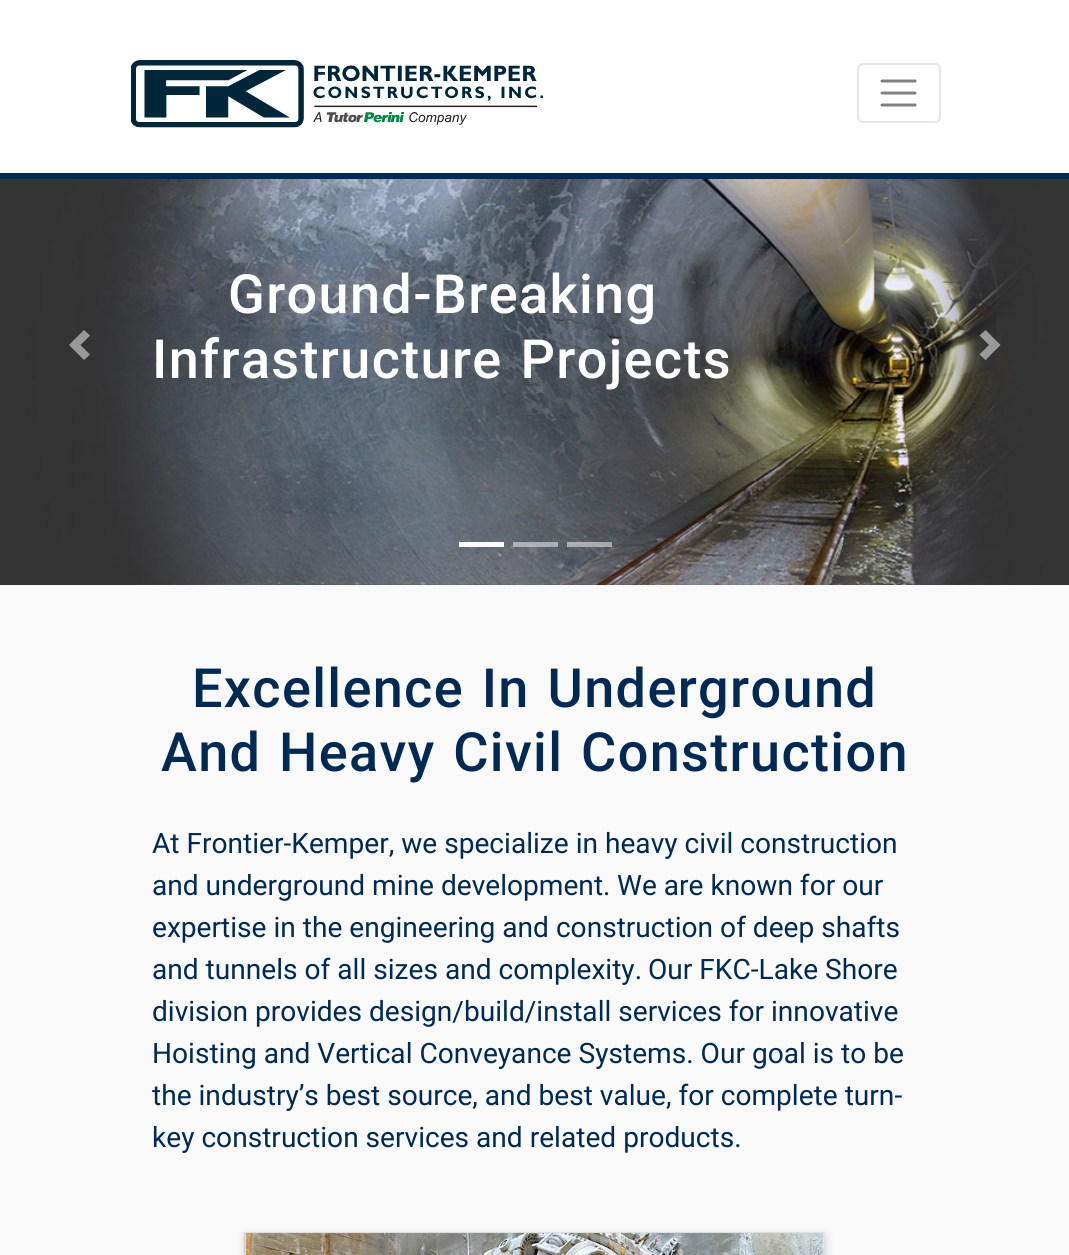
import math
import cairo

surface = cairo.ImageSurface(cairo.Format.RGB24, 1069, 1255)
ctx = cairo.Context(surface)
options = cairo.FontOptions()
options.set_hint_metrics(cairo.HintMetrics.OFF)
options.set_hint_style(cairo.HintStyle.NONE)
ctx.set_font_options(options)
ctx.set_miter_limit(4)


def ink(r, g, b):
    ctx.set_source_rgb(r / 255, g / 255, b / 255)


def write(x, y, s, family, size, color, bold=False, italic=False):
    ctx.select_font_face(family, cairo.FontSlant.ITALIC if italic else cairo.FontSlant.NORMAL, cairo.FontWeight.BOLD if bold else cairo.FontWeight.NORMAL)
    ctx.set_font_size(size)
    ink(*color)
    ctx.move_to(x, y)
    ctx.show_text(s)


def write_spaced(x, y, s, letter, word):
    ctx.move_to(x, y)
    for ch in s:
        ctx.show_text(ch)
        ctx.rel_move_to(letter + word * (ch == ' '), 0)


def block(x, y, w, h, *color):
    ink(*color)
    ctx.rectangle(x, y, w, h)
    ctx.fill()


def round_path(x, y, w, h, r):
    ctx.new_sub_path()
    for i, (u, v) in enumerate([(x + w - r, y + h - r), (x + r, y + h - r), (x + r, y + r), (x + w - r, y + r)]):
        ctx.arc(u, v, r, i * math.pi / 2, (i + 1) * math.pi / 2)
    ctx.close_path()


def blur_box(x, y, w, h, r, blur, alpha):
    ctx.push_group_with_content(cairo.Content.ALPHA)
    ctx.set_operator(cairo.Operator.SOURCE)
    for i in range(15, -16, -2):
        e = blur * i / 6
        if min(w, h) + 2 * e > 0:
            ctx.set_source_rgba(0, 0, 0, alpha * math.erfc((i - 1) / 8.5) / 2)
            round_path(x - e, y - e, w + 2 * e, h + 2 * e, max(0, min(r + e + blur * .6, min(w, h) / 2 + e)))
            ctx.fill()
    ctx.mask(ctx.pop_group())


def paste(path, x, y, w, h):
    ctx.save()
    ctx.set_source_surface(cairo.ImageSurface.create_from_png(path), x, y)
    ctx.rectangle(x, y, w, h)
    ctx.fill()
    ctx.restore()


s1 = dict(family="Roboto", size=28.1, color=(0, 42, 84))

ink(249, 249, 250)
ctx.paint()
block(0, 0, 1069, 173, 255, 255, 255)
block(0, 173, 1069, 6, 0, 42, 84)
paste("pic1.png", 131, 60, 412, 68)
round_path(858, 64, 82, 58, 5)
ink(230, 230, 230)
ctx.stroke()
ctx.new_path()
ctx.move_to(882, 81)
ctx.line_to(915, 81)
ctx.move_to(882, 93)
ctx.line_to(915, 93)
ctx.move_to(882, 105)
ctx.line_to(915, 105)
ink(128, 128, 128)
ctx.set_line_width(3)
ctx.set_line_cap(cairo.LineCap.ROUND)
ctx.stroke()
paste("pic2.png", 0, 179, 1069, 406)
ink(153, 153, 153)
ctx.new_path()
ctx.move_to(84, 330)
ctx.line_to(69, 345)
ctx.line_to(84, 360)
ctx.line_to(90, 354.5)
ctx.line_to(80.5, 345)
ctx.line_to(90, 335.5)
ctx.close_path()
ctx.fill()
ctx.select_font_face("Roboto Medium")
ctx.set_font_size(54)
ink(255, 255, 255)
write_spaced(228, 313, "Ground-Breaking", 1.35, 0)
write_spaced(152, 378, "Infrastructure Projects", 1.35, 3)
ctx.set_source_rgba(1, 1, 1, 0.5)
ctx.new_path()
ctx.move_to(985.5, 330)
ctx.line_to(979.5, 335.5)
ctx.line_to(989, 345)
ctx.line_to(979.5, 354.5)
ctx.line_to(985.5, 360)
ctx.line_to(1000.5, 345)
ctx.close_path()
ctx.fill()
block(459, 542, 45, 5, 255, 255, 255)
ctx.set_source_rgba(1, 1, 1, 0.5)
ctx.rectangle(513, 542, 45, 5)
ctx.fill()
ctx.rectangle(567, 542, 45, 5)
ctx.fill()
ink(0, 42, 84)
write_spaced(192, 707, "Excellence In Underground", 1.35, 3)
write_spaced(161, 771, "And Heavy Civil Construction", 1.35, 3)
write(152, 853, "At Frontier-Kemper, we specialize in heavy civil construction", **s1)
write(152, 895, "and underground mine development.", **s1)
write(617, 895, "We are known for our", **s1)
write(152, 937, "expertise in the engineering and construction of deep shafts", **s1)
write(152, 979, "and tunnels of all sizes and complexity.", **s1)
write(648, 979, "Our FKC-Lake Shore", **s1)
write(152, 1021, "division provides design/build/install services for innovative", **s1)
write(152, 1063, "Hoisting and Vertical Conveyance Systems. Our goal is to be", **s1)
write(152, 1105, "the industry’s best source, and best value, for complete turn-", **s1)
write(152, 1147, "key construction services and related products.", **s1)
ink(204, 204, 204)
blur_box(245, 1236, 580, 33, 0, 4.5, 1)
block(245, 1232, 580, 23, 255, 255, 255)
ink(223, 223, 223)
ctx.new_path()
ctx.move_to(244, 1232)
ctx.line_to(825, 1232)
ctx.line_to(824, 1233)
ctx.line_to(246, 1233)
ctx.close_path()
ctx.fill()
ctx.set_source_rgba(0, 0, 0, 0.12)
ctx.new_path()
ctx.move_to(825, 1232)
ctx.line_to(825, 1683)
ctx.line_to(824, 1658)
ctx.line_to(824, 1233)
ctx.close_path()
ctx.fill()
ctx.new_path()
ctx.move_to(244, 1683)
ctx.line_to(244, 1232)
ctx.line_to(246, 1233)
ctx.line_to(246, 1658)
ctx.close_path()
ctx.fill()
paste("pic3.png", 246, 1233, 578, 22)
surface.write_to_png("screenshot.png")
